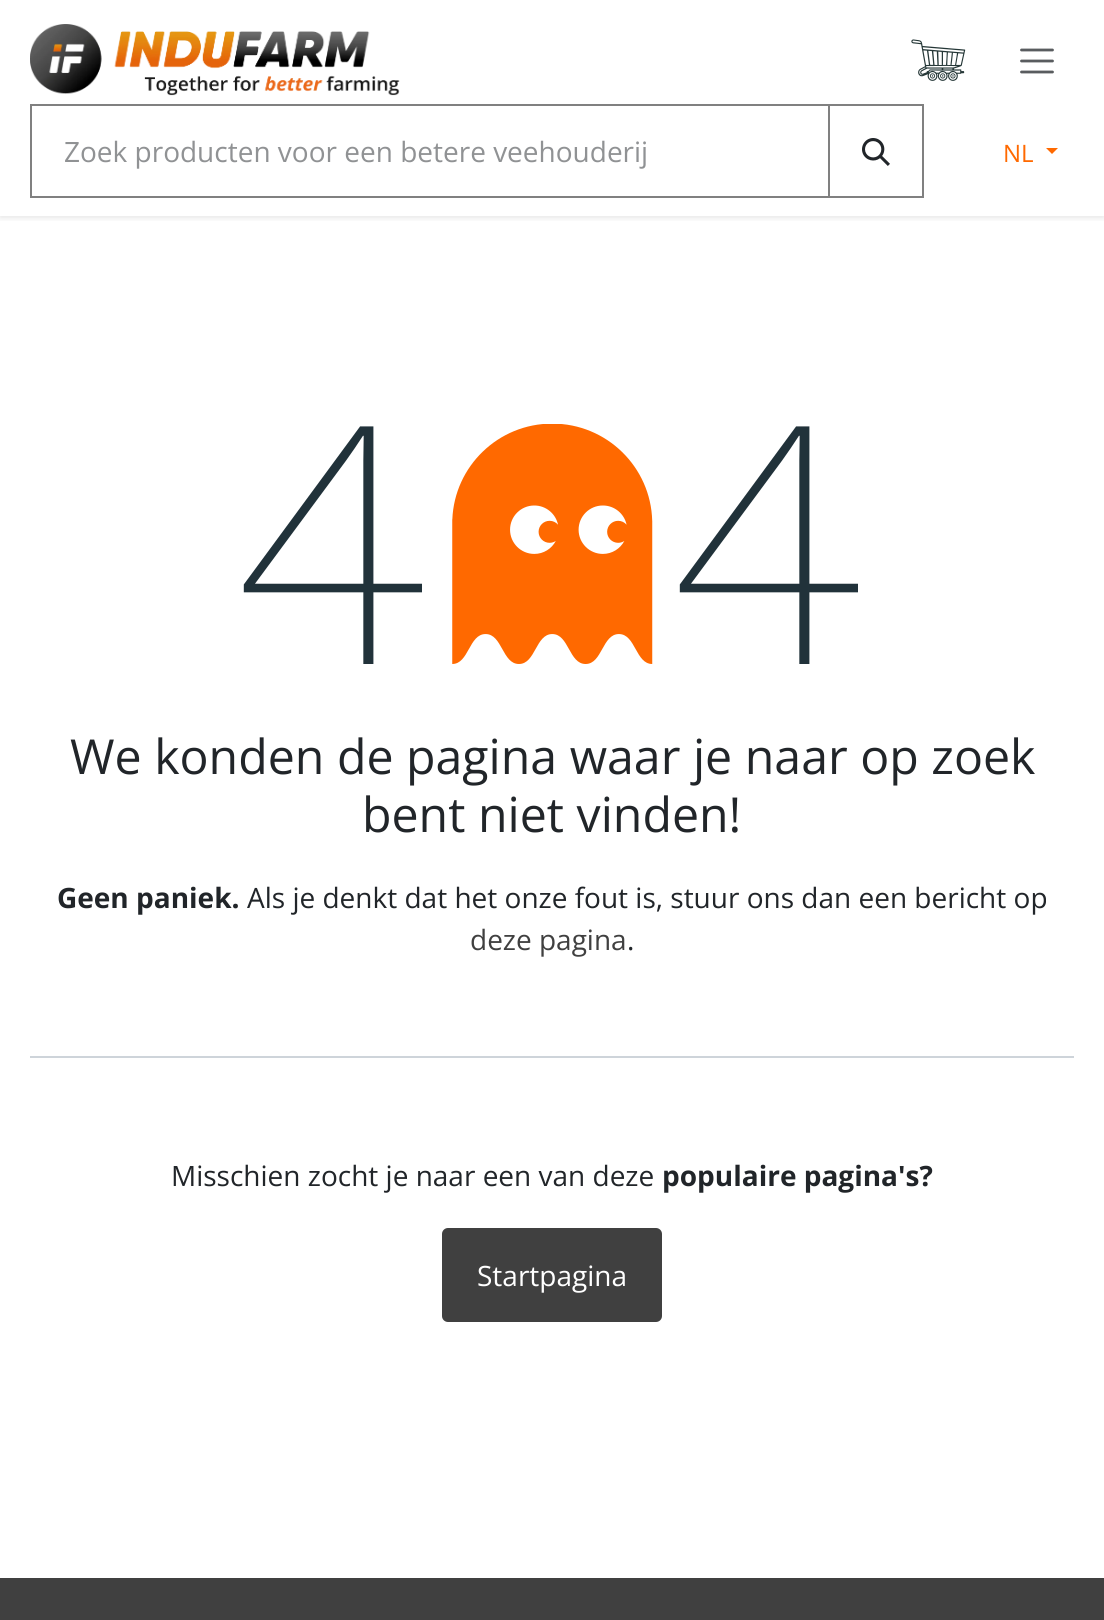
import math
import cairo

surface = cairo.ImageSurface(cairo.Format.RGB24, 1104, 1620)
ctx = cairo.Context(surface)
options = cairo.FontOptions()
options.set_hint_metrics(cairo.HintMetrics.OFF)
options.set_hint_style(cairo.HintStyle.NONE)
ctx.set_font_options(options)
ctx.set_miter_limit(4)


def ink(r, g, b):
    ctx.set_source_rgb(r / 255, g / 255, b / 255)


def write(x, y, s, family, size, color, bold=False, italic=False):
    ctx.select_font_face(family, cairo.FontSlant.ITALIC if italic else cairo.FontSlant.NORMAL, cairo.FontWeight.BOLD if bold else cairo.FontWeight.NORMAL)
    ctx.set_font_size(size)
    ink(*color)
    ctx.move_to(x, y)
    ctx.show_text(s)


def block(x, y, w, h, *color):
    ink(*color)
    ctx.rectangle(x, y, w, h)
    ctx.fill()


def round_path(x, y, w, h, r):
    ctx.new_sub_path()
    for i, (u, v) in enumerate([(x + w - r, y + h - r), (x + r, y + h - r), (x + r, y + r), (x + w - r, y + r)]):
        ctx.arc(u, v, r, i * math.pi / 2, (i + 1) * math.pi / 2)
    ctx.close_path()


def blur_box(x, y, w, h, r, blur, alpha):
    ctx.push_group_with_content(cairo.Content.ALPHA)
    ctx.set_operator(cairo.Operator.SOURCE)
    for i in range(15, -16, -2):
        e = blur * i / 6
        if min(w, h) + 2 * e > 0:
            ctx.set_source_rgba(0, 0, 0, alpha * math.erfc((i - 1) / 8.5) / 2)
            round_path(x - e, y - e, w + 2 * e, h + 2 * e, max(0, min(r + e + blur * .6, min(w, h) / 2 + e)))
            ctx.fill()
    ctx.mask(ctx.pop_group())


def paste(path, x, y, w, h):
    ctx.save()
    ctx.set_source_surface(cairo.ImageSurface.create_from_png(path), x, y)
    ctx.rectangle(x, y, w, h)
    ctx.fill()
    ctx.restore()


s1 = dict(family="Open Sans", size=28, color=(144, 146, 148))
s2 = dict(family="Open Sans", size=24, color=(255, 105, 0))
s3 = dict(family="Open Sans", size=48.25, color=(33, 37, 41))
s4 = dict(family="Open Sans", size=28, color=(33, 37, 41), bold=True)
s5 = dict(family="Open Sans", size=28, color=(33, 37, 41))
s6 = dict(family="Open Sans", size=28, color=(64, 64, 64))
s7 = dict(family="Open Sans", size=28, color=(255, 255, 255))

ink(255, 255, 255)
ctx.paint()
ctx.save()
ctx.rectangle(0, 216, 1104, 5)
ctx.clip()
ink(0, 0, 0)
blur_box(0, 2, 1104, 216, 0, 3, 0.1)
ctx.restore()
paste("pic1.png", 30, 24, 370, 72)
paste("pic2.png", 911, 39, 55, 42)
ctx.new_path()
ctx.move_to(1021.5, 50)
ctx.line_to(1052.5, 50)
ctx.move_to(1021.5, 61)
ctx.line_to(1052.5, 61)
ctx.move_to(1021.5, 72)
ctx.line_to(1052.5, 72)
ink(89, 92, 95)
ctx.set_line_width(2.8)
ctx.set_line_cap(cairo.LineCap.ROUND)
ctx.stroke()
ctx.rectangle(31, 105, 798, 92)
ink(128, 128, 128)
ctx.set_line_width(2)
ctx.set_line_cap(cairo.LineCap.BUTT)
ctx.stroke()
write(64, 162, "Zoek producten voor een betere veehouderij", **s1)
ctx.rectangle(829, 105, 94, 92)
ink(128, 128, 128)
ctx.stroke()
paste("pic3.png", 862, 138, 28, 28)
write(1003, 162, "NL", **s2)
ctx.new_path()
ctx.move_to(1046, 148)
ctx.line_to(1058, 148)
ctx.line_to(1052, 154)
ctx.close_path()
ctx.fill()
paste("pic4.png", 243, 424, 615, 240)
write(70, 774, "We konden de pagina waar je naar op zoek", **s3)
write(362, 832, "bent niet vinden!", **s3)
write(57, 908, "Geen paniek.", **s4)
write(247, 908, "Als je denkt dat het onze fout is, stuur ons dan een bericht op", **s5)
write(470, 950, "deze pagina", **s6)
write(627, 950, ".", **s5)
block(30, 1056, 1044, 2, 206, 212, 218)
write(171, 1186, "Misschien zocht je naar een van deze", **s5)
write(662, 1186, "populaire pagina's?", **s4)
ink(64, 64, 64)
round_path(443, 1229, 218, 92, 5)
ctx.fill_preserve()
ctx.stroke()
write(477, 1286, "Startpagina", **s7)
block(0, 1578, 1104, 42, 64, 64, 64)
surface.write_to_png("screenshot.png")
